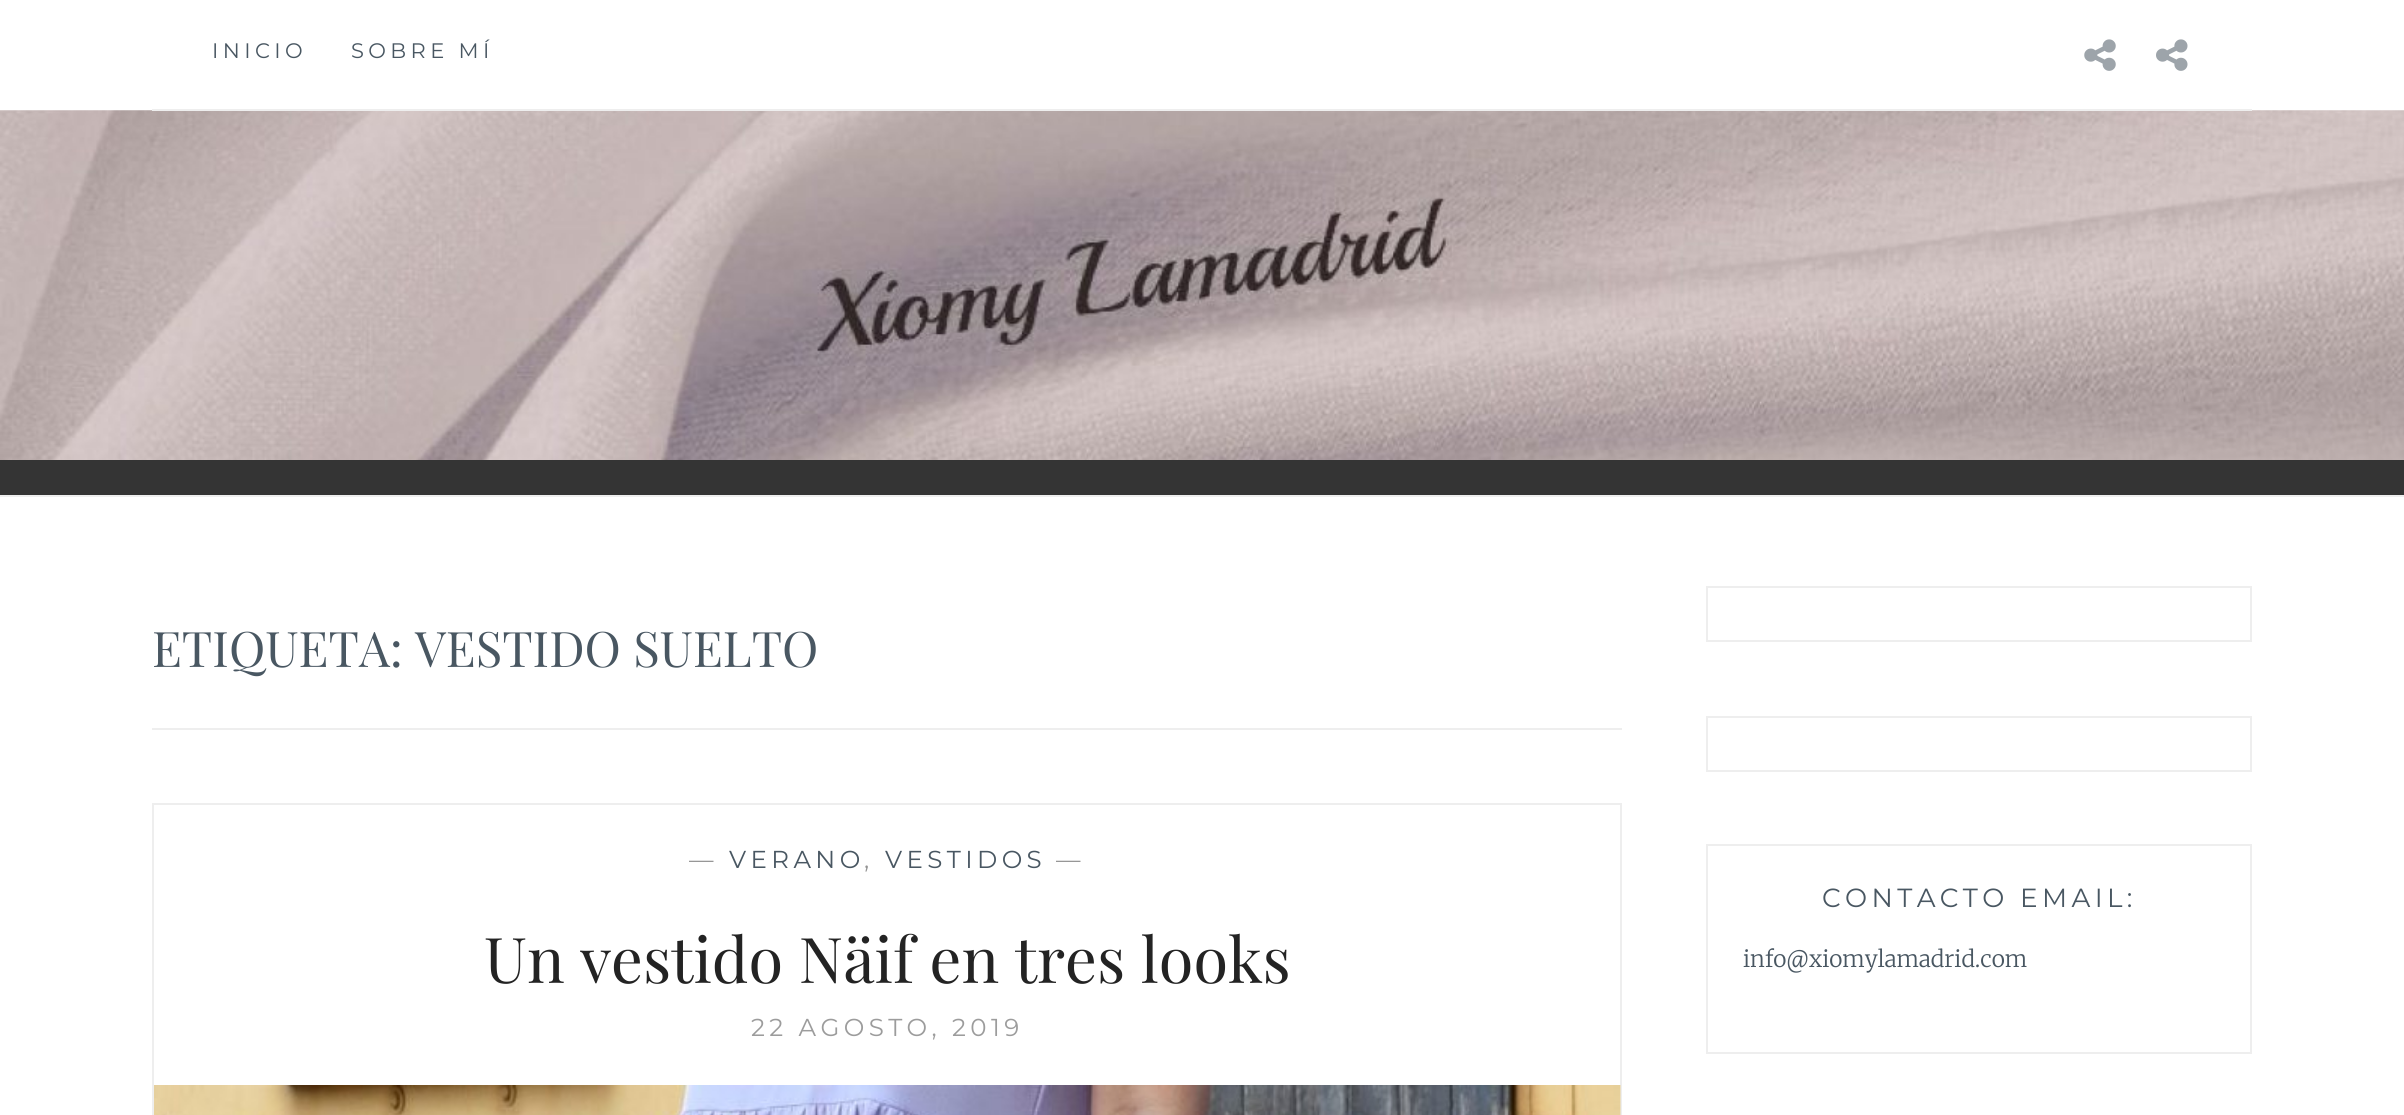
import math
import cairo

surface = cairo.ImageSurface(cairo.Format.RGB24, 2404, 1115)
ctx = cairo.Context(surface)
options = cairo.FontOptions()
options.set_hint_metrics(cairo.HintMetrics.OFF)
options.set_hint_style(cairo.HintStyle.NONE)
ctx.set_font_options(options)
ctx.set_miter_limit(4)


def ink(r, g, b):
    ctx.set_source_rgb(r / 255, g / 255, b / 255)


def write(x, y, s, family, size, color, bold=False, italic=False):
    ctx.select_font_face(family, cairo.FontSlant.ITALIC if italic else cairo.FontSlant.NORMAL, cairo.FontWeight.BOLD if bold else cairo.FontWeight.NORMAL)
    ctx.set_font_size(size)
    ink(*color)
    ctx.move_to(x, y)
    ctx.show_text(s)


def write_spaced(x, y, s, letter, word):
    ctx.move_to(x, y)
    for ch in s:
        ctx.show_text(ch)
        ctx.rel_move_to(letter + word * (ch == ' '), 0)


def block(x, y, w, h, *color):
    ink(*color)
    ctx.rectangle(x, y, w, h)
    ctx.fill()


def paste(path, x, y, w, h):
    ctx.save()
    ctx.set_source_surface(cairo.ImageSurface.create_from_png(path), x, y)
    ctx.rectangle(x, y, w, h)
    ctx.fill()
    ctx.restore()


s1 = dict(family="Playfair Display", size=49, color=(73, 87, 98))
s2 = dict(family="Playfair Display", size=63, color=(35, 35, 35))
s3 = dict(family="Merriweather Light", size=22.75, color=(73, 87, 98))

ink(255, 255, 255)
ctx.paint()
paste("pic3.png", 0, 110, 2404, 350)
block(152, 109, 2100, 2, 238, 238, 238)
ctx.select_font_face("Montserrat")
ctx.set_font_size(21)
ink(73, 87, 98)
write_spaced(212, 58, "INICIO", 4.4, 0)
write_spaced(351, 58, "SOBRE MÍ", 4.4, 0)
paste("pic1.png", 2084, 39, 32, 32)
paste("pic2.png", 2156, 39, 32, 32)
block(0, 460, 2404, 35, 52, 52, 52)
block(0, 495, 2404, 2, 238, 238, 238)
block(152, 728, 1470, 2, 238, 238, 238)
write(152, 667, "ETIQUETA: VESTIDO SUELTO", **s1)
ctx.rectangle(153, 804, 1468, 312)
ink(238, 238, 238)
ctx.stroke()
ctx.select_font_face("Montserrat")
ctx.set_font_size(24.5)
ink(148, 148, 148)
write_spaced(689, 868, "—", 4.4, 0)
ink(73, 87, 98)
write_spaced(729, 868, "VERANO", 4.4, 0)
write_spaced(885, 868, "VESTIDOS", 4.4, 0)
ink(148, 148, 148)
write_spaced(1056, 868, "—", 4.4, 0)
write_spaced(864, 868, ",", 4.4, 0)
write(484, 983, "Un vestido Näif en tres looks", **s2)
ctx.select_font_face("Montserrat")
ctx.set_font_size(24.5)
ink(156, 156, 156)
write_spaced(751, 1036, "22 AGOSTO, 2019", 4.4, 0)
paste("pic4.png", 154, 1085, 1467, 30)
ctx.rectangle(1707, 587, 544, 54)
ink(238, 238, 238)
ctx.stroke()
ctx.rectangle(1707, 717, 544, 54)
ctx.stroke()
ctx.rectangle(1707, 845, 544, 208)
ctx.stroke()
ctx.set_font_size(26.25)
ink(73, 87, 98)
write_spaced(1822, 907, "CONTACTO EMAIL:", 4.4, 0)
write(1743, 967, "info@xiomylamadrid.com", **s3)
surface.write_to_png("screenshot.png")
